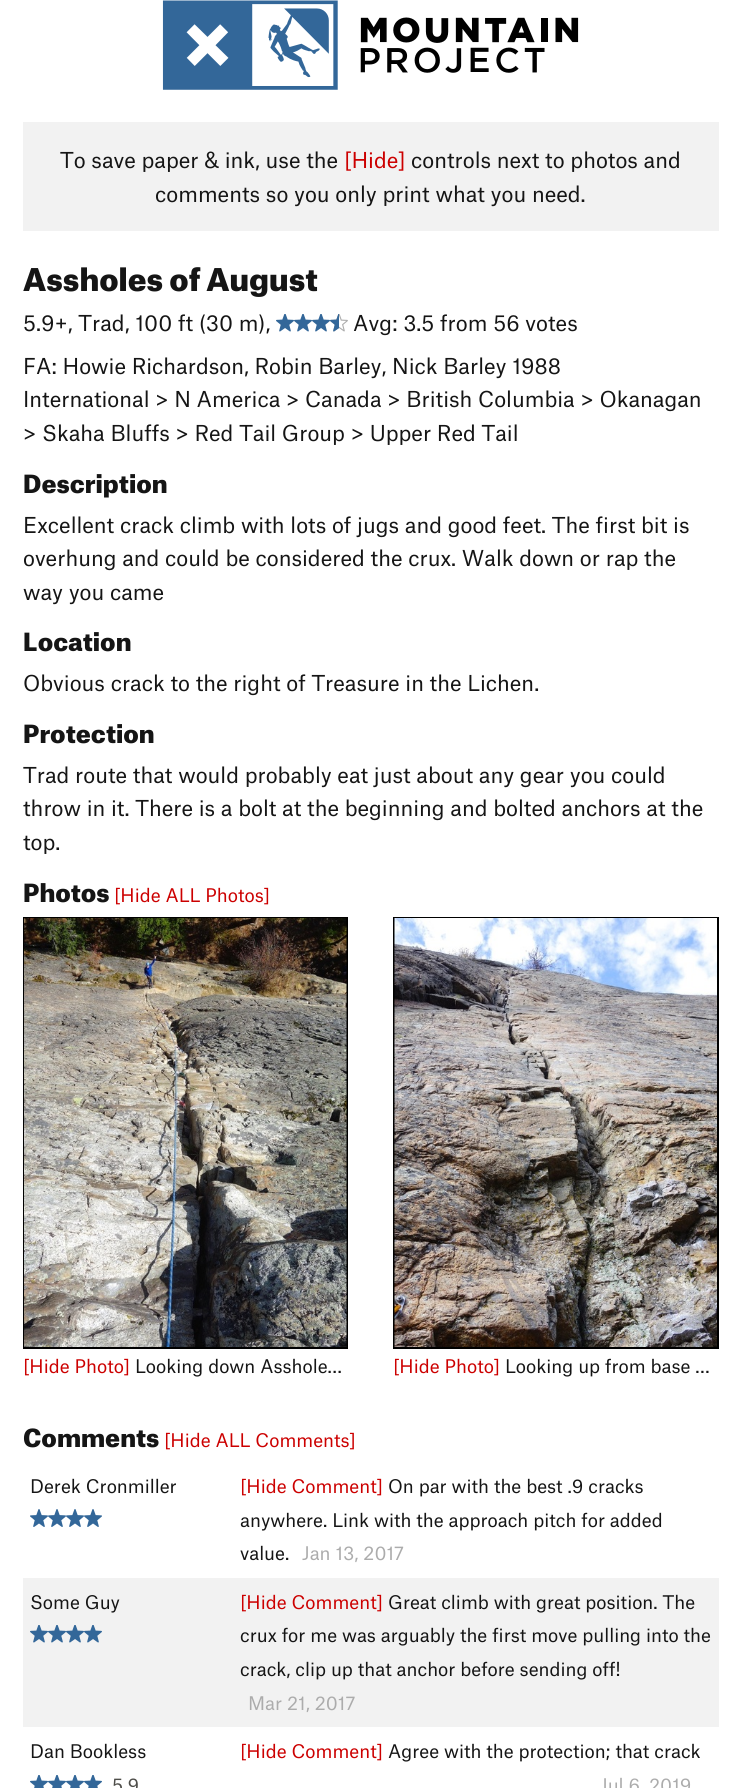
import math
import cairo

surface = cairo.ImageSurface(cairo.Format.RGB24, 740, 1788)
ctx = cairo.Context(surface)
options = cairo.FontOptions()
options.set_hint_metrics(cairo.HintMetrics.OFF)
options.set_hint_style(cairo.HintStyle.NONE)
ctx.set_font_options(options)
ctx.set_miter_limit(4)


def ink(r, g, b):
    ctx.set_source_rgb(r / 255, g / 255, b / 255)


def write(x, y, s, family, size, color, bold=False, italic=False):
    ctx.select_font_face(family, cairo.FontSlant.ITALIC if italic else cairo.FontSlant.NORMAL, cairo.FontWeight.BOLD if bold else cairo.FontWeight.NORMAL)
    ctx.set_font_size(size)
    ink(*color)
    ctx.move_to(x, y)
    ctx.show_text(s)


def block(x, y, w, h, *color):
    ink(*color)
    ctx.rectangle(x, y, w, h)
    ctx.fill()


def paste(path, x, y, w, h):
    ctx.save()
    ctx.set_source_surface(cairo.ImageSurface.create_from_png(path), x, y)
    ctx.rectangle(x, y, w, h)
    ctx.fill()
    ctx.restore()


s1 = dict(family="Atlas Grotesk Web", size=21, color=(21, 21, 21))
s2 = dict(family="Atlas Grotesk Web", size=21, color=(204, 0, 0))
s3 = dict(family="Atlas Grotesk Web Black", size=30, color=(21, 21, 21))
s4 = dict(family="Atlas Grotesk Web Black", size=24, color=(21, 21, 21))
s5 = dict(family="Atlas Grotesk Web", size=18, color=(204, 0, 0))
s6 = dict(family="Atlas Grotesk Web", size=18, color=(21, 21, 21))
s7 = dict(family="Atlas Grotesk Web", size=18, color=(172, 172, 172))
s8 = dict(family="Atlas Grotesk Web", size=18, color=(78, 77, 73))

ink(255, 255, 255)
ctx.paint()
paste("pic1.png", 162, 0, 417, 90)
block(23, 122, 696, 109, 242, 242, 242)
write(60, 168, "To save paper & ink, use the", **s1)
write(344, 168, "[Hide]", **s2)
write(411, 168, "controls next to photos and", **s1)
write(155, 202, "comments so you only print what you need.", **s1)
write(23, 291, "Assholes of August", **s3)
write(23, 331, "5.9+, Trad, 100 ft (30 m),", **s1)
paste("pic2.png", 276, 314, 18, 18)
paste("pic2.png", 294, 314, 18, 18)
paste("pic2.png", 312, 314, 18, 18)
paste("pic3.png", 330, 314, 18, 18)
write(353, 331, "Avg: 3.5 from 56 votes", **s1)
write(23, 374, "FA: Howie Richardson, Robin Barley, Nick Barley 1988", **s1)
write(23, 407, "International > N America > Canada > British Columbia > Okanagan", **s1)
write(23, 441, "> Skaha Bluffs > Red Tail Group > Upper Red Tail", **s1)
write(23, 493, "Description", **s4)
write(23, 533, "Excellent crack climb with lots of jugs and good feet. The first bit is", **s1)
write(23, 566, "overhung and could be considered the crux. Walk down or rap the", **s1)
write(23, 600, "way you came", **s1)
write(23, 651, "Location", **s4)
write(23, 691, "Obvious crack to the right of Treasure in the Lichen.", **s1)
write(23, 743, "Protection", **s4)
write(23, 783, "Trad route that would probably eat just about any gear you could", **s1)
write(23, 816, "throw in it. There is a bolt at the beginning and bolted anchors at the", **s1)
write(23, 850, "top.", **s1)
write(23, 902, "Photos", **s4)
write(114, 902, "[Hide ALL Photos]", **s5)
ctx.rectangle(24, 918, 323, 430)
ink(0, 0, 0)
ctx.stroke()
paste("pic4.png", 24, 918, 323, 429)
write(23, 1373, "[Hide Photo]", **s5)
write(135, 1373, "Looking down Asshole…", **s6)
ctx.rectangle(394, 918, 324, 430)
ink(0, 0, 0)
ctx.stroke()
paste("pic5.png", 394, 918, 323, 429)
write(393, 1373, "[Hide Photo]", **s5)
write(505, 1373, "Looking up from base …", **s6)
write(23, 1447, "Comments", **s4)
write(164, 1447, "[Hide ALL Comments]", **s5)
write(30, 1493, "Derek Cronmiller", **s6)
paste("pic6.png", 30, 1509, 18, 18)
paste("pic6.png", 48, 1509, 18, 18)
paste("pic6.png", 66, 1509, 18, 18)
paste("pic6.png", 84, 1509, 18, 18)
write(240, 1493, "[Hide Comment]", **s5)
write(388, 1493, "On par with the best .9 cracks", **s6)
write(240, 1527, "anywhere. Link with the approach pitch for added", **s6)
write(240, 1560, "value.", **s6)
write(302, 1560, "Jan 13, 2017", **s7)
block(23, 1578, 696, 149, 242, 242, 242)
write(30, 1609, "Some Guy", **s6)
paste("pic7.png", 30, 1625, 18, 18)
paste("pic7.png", 48, 1625, 18, 18)
paste("pic7.png", 66, 1625, 18, 18)
paste("pic7.png", 84, 1625, 18, 18)
write(240, 1609, "[Hide Comment]", **s5)
write(388, 1609, "Great climb with great position. The", **s6)
write(240, 1642, "crux for me was arguably the first move pulling into the", **s6)
write(240, 1676, "crack, clip up that anchor before sending off!", **s6)
write(248, 1710, "Mar 21, 2017", **s7)
write(30, 1758, "Dan Bookless", **s6)
paste("pic8.png", 30, 1775, 18, 13)
paste("pic8.png", 48, 1775, 18, 13)
paste("pic8.png", 66, 1775, 18, 13)
paste("pic8.png", 84, 1775, 18, 13)
write(112, 1792, "5.9", **s8)
write(240, 1758, "[Hide Comment]", **s5)
write(388, 1758, "Agree with the protection; that crack", **s6)
write(600, 1792, "Jul 6, 2019", **s7)
surface.write_to_png("screenshot.png")
